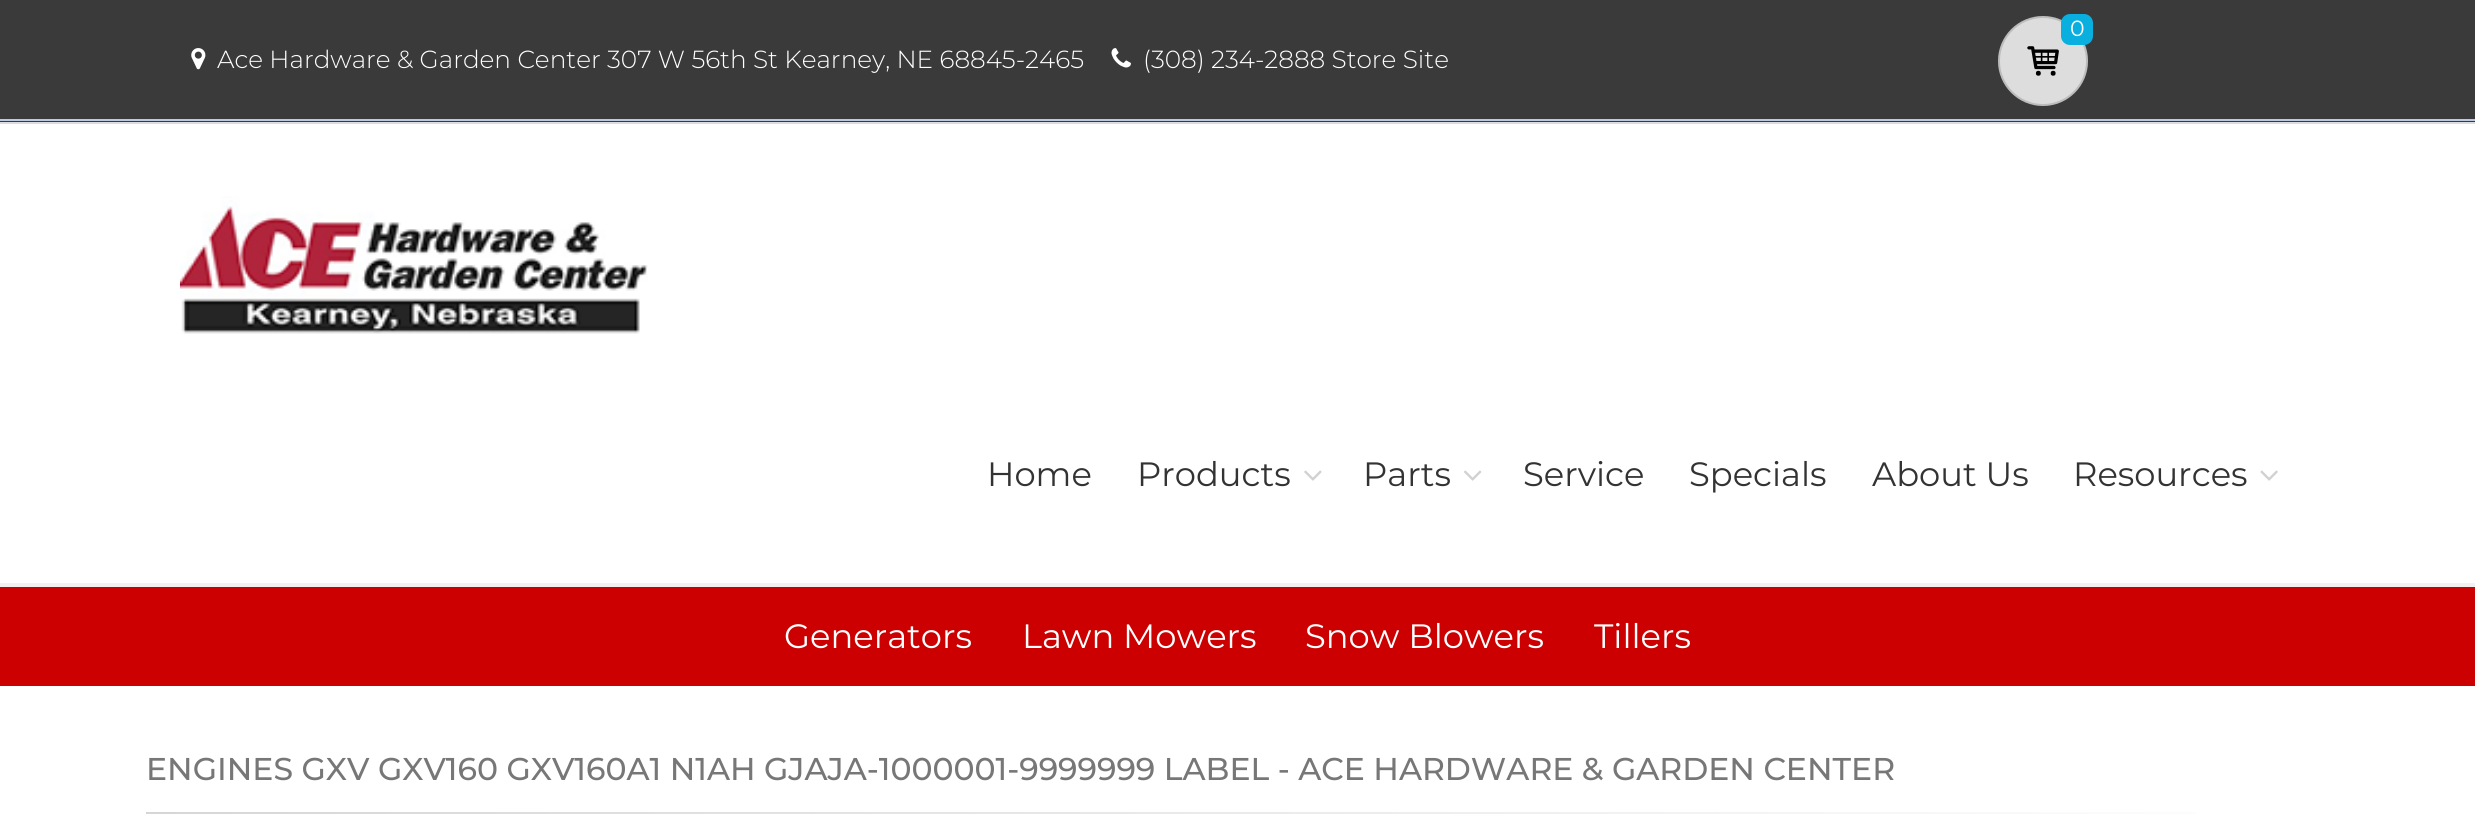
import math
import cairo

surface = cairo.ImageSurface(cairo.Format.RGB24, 2475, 839)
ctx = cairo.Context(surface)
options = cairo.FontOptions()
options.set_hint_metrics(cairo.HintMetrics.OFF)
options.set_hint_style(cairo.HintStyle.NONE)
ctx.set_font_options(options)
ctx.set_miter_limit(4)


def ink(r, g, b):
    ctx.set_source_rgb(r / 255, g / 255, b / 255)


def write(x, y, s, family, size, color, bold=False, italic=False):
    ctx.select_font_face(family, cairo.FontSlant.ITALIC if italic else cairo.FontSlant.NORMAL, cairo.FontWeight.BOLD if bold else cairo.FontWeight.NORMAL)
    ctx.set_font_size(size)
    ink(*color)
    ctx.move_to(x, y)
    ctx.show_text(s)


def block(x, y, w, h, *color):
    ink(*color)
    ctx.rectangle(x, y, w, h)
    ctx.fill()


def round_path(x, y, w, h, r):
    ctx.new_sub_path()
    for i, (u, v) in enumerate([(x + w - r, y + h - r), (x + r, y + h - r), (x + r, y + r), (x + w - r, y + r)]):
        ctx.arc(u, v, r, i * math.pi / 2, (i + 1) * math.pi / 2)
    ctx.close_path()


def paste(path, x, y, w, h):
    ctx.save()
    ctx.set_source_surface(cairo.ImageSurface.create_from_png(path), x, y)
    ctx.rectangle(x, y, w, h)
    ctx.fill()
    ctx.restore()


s1 = dict(family="Montserrat", size=22, color=(255, 255, 255))
s2 = dict(family="Montserrat Light", size=24.75, color=(255, 255, 255))
s3 = dict(family="Montserrat", size=33.75, color=(51, 51, 51))
s4 = dict(family="Montserrat", size=33.75, color=(255, 255, 255))
s5 = dict(family="Montserrat Medium", size=31.5, color=(119, 119, 119))

ink(255, 255, 255)
ctx.paint()
block(0, 0, 2475, 122, 58, 58, 58)
block(0, 119, 2475, 2, 187, 201, 227)
ink(221, 221, 221)
ctx.arc(2043, 61, 45, 0, 2 * math.pi)
ctx.fill()
ctx.arc(2043, 61, 44, 0, 2 * math.pi)
ctx.set_source_rgba(0, 0, 0, 0.15)
ctx.stroke()
ink(9, 175, 223)
round_path(2061, 14, 32, 31, 9)
ctx.fill()
write(2070, 36, "0", **s1)
paste("pic1.png", 2027, 46, 32, 30)
paste("pic2.png", 191, 48, 15, 22)
write(217, 68, "Ace Hardware & Garden Center 307 W 56th St Kearney, NE 68845-2465", **s2)
paste("pic3.png", 1111, 48, 20, 20)
write(1143, 68, "(308) 234-2888 Store Site", **s2)
block(0, 122, 2475, 2, 221, 221, 221)
block(0, 583, 2475, 4, 241, 241, 241)
paste("pic4.png", 180, 196, 468, 138)
write(987, 486, "Home", **s3)
write(1137, 486, "Products", **s3)
paste("pic5.png", 1304, 470, 18, 11)
write(1363, 486, "Parts", **s3)
paste("pic6.png", 1464, 470, 18, 11)
write(1523, 486, "Service", **s3)
write(1689, 486, "Specials", **s3)
write(1872, 486, "About Us", **s3)
write(2073, 486, "Resources", **s3)
paste("pic7.png", 2260, 470, 18, 11)
block(0, 587, 2475, 99, 204, 0, 0)
write(784, 648, "Generators", **s4)
write(1022, 648, "Lawn Mowers", **s4)
write(1305, 648, "Snow Blowers", **s4)
write(1594, 648, "Tillers", **s4)
write(146, 780, "ENGINES GXV GXV160 GXV160A1 N1AH GJAJA-1000001-9999999 LABEL - ACE HARDWARE & GARDEN CENTER", **s5)
gradient = cairo.LinearGradient(146, 813, 2329, 813)
gradient.add_color_stop_rgba(0, 0.839, 0.839, 0.839, 1)
gradient.add_color_stop_rgba(1, 1, 1, 1, 1)
ctx.set_source(gradient)
ctx.rectangle(146, 812, 2050, 2)
ctx.fill()
surface.write_to_png("screenshot.png")
